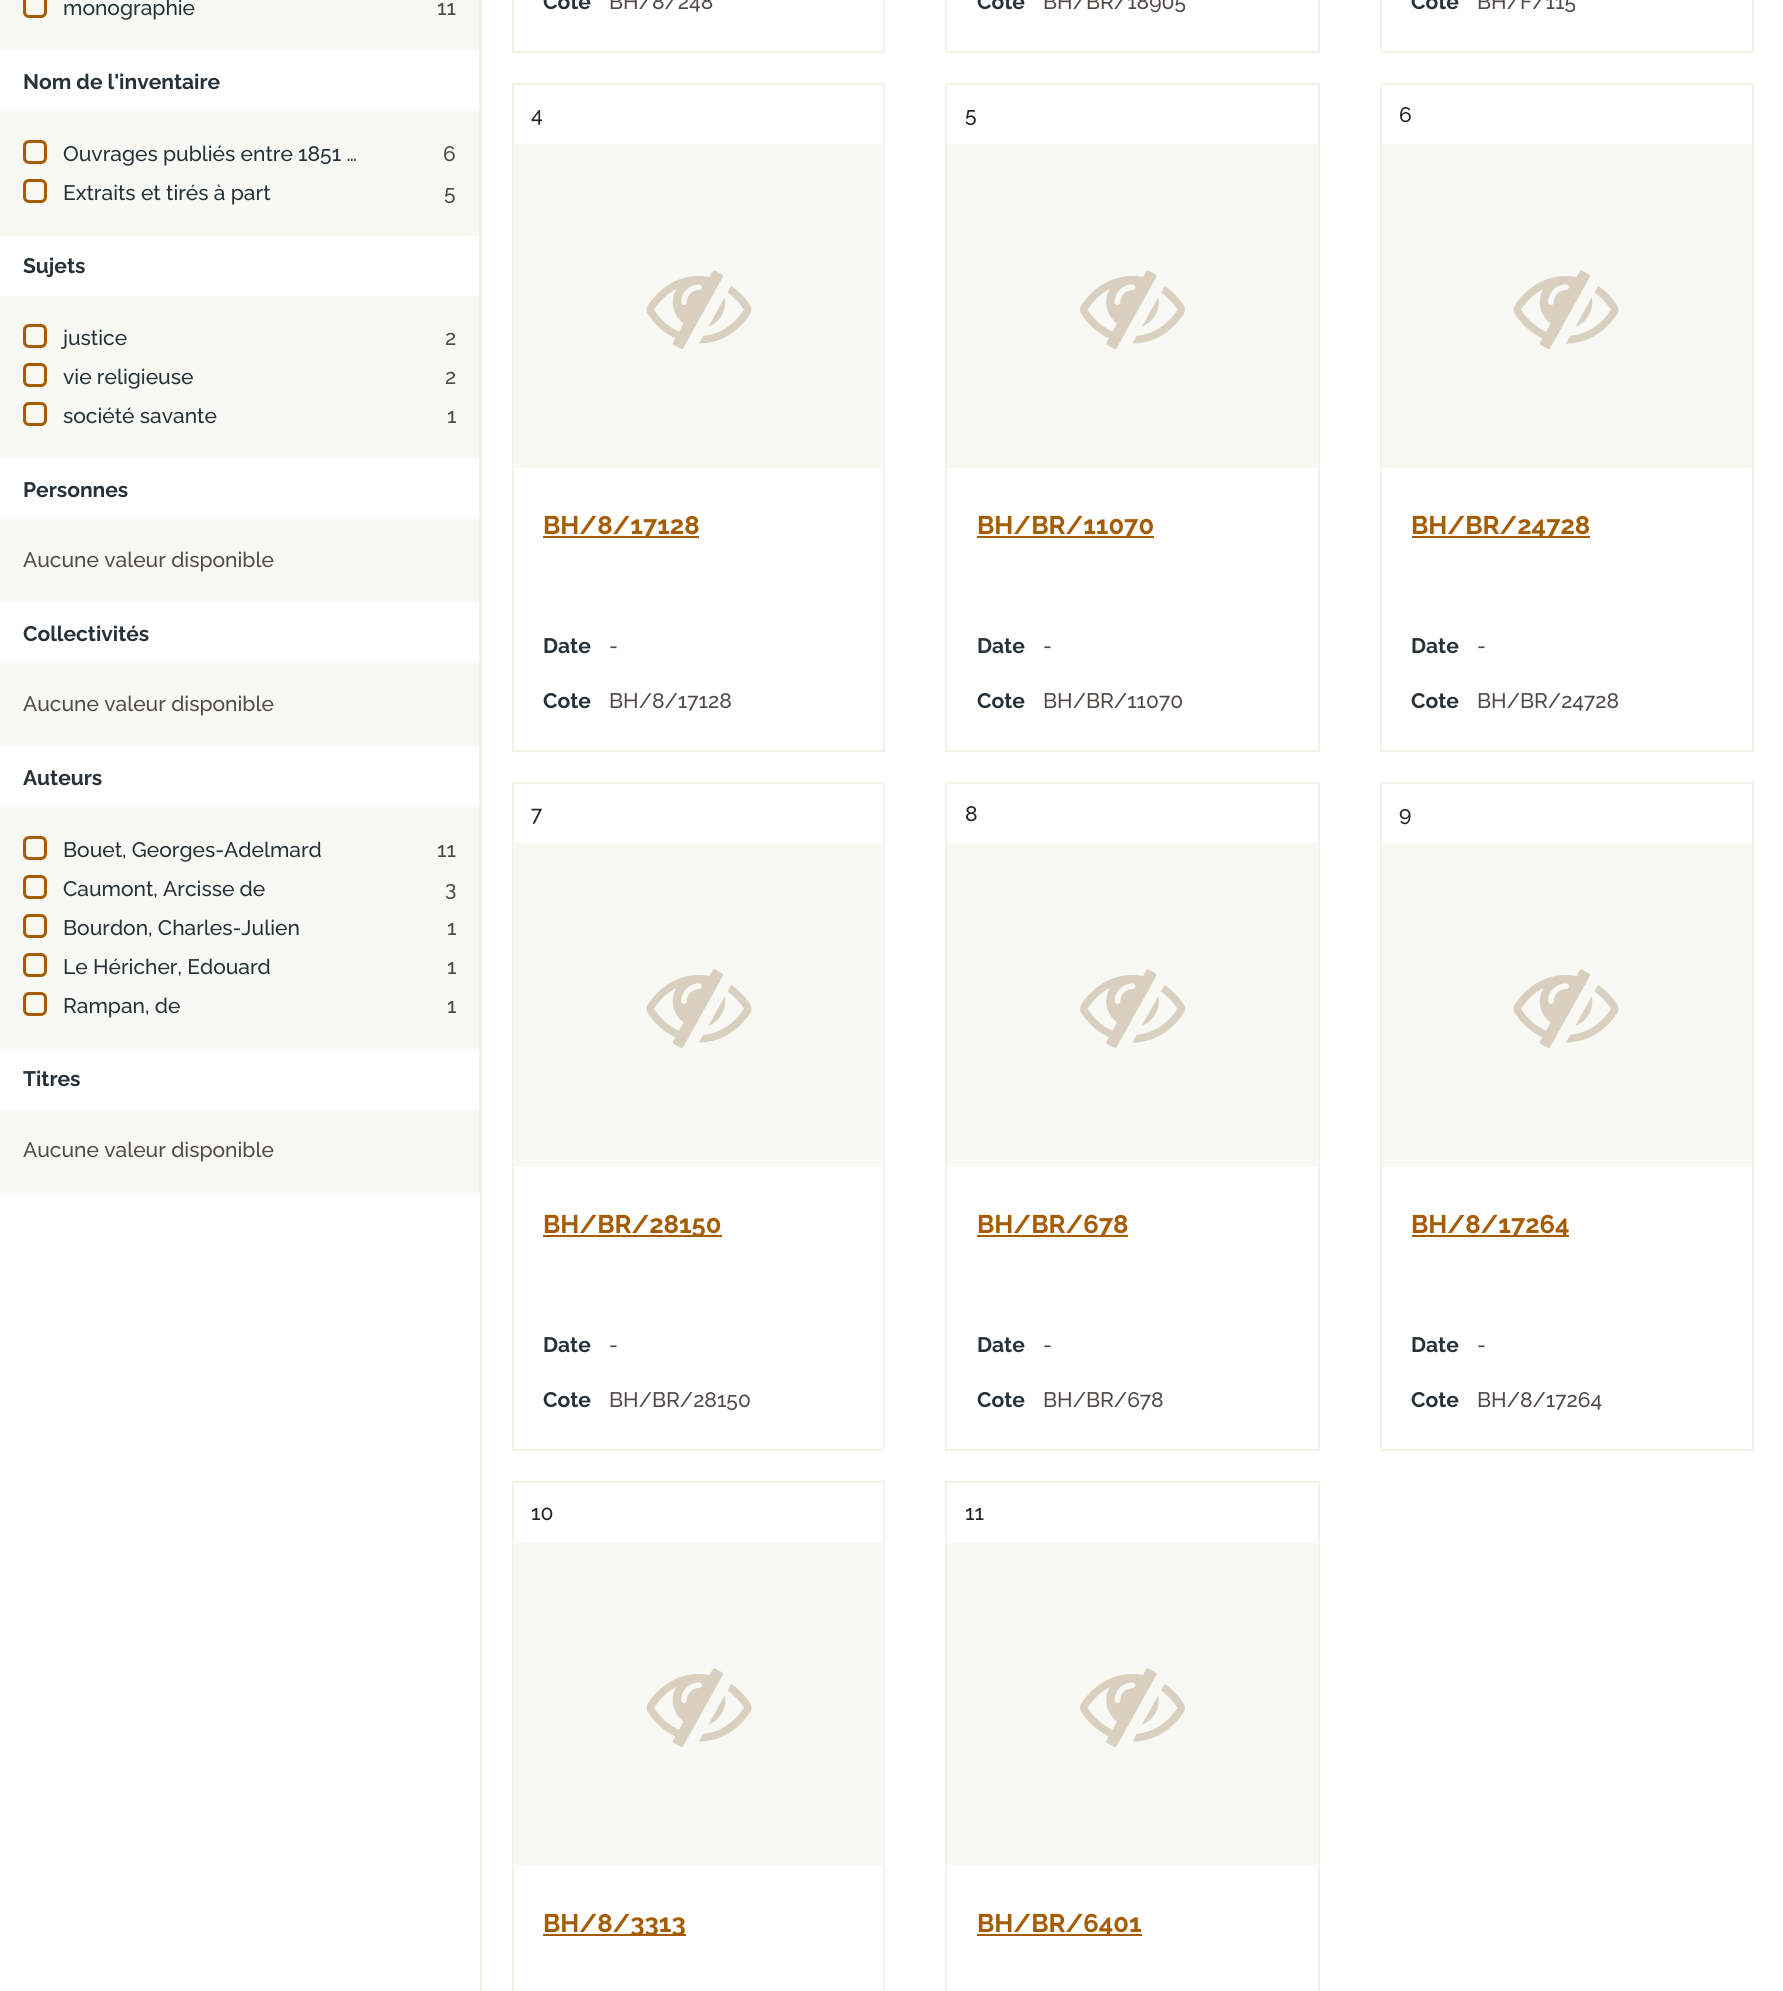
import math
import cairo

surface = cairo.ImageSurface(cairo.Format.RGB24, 1783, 1991)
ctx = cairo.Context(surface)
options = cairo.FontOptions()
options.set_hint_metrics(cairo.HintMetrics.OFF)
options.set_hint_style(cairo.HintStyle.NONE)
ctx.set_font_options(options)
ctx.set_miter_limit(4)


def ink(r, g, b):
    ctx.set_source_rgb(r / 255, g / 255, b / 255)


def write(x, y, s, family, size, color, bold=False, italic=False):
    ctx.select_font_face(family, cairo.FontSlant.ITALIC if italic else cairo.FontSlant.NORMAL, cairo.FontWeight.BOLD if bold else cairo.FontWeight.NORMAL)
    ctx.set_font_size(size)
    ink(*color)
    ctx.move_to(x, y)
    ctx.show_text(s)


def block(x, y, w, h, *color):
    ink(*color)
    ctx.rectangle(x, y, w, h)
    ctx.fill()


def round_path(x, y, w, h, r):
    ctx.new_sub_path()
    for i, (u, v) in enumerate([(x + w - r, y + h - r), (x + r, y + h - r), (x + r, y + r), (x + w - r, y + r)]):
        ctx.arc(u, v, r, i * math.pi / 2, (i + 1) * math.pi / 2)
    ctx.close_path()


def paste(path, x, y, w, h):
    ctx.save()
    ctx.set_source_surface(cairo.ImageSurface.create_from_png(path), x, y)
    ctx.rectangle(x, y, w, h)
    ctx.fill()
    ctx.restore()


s1 = dict(family="Raleway Medium", size=21, color=(38, 50, 56))
s2 = dict(family="Raleway Medium", size=21, color=(80, 75, 73))
s3 = dict(family="Raleway", size=21, color=(38, 50, 56), bold=True)
s4 = dict(family="Raleway Medium", size=21, color=(33, 37, 41))
s5 = dict(family="Raleway", size=25.5, color=(166, 92, 2), bold=True)

ink(255, 255, 255)
ctx.paint()
block(479, 0, 1, 1193, 244, 242, 230)
block(0, 0, 479, 51, 248, 248, 244)
round_path(24.5, -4.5, 21, 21, 4.5)
ink(166, 92, 2)
ctx.set_line_width(3)
ctx.stroke()
write(63, 15, "monographie", **s1)
write(437, 15, "11", **s2)
block(0, 111, 479, 125, 248, 248, 244)
write(23, 89, "Nom de l'inventaire", **s3)
round_path(24.5, 141.5, 21, 21, 4.5)
ink(166, 92, 2)
ctx.stroke()
write(63, 161, "Ouvrages publiés entre 1851 …", **s1)
write(443, 161, "6", **s2)
round_path(24.5, 180.5, 21, 21, 4.5)
ink(166, 92, 2)
ctx.stroke()
write(63, 200, "Extraits et tirés à part", **s1)
write(444, 200, "5", **s2)
block(0, 296, 479, 163, 248, 248, 244)
write(23, 273, "Sujets", **s3)
round_path(24.5, 325.5, 21, 21, 4.5)
ink(166, 92, 2)
ctx.stroke()
write(63, 345, "justice", **s1)
write(445, 345, "2", **s2)
round_path(24.5, 364.5, 21, 21, 4.5)
ink(166, 92, 2)
ctx.stroke()
write(63, 384, "vie religieuse", **s1)
write(445, 384, "2", **s2)
round_path(24.5, 403.5, 21, 21, 4.5)
ink(166, 92, 2)
ctx.stroke()
write(63, 423, "société savante", **s1)
write(447, 423, "1", **s2)
block(0, 519, 479, 84, 248, 248, 244)
write(23, 497, "Personnes", **s3)
write(23, 567, "Aucune valeur disponible", **s2)
block(0, 663, 479, 84, 248, 248, 244)
write(23, 641, "Collectivités", **s3)
write(23, 711, "Aucune valeur disponible", **s2)
block(0, 807, 479, 242, 248, 248, 244)
write(23, 785, "Auteurs", **s3)
round_path(24.5, 837.5, 21, 21, 4.5)
ink(166, 92, 2)
ctx.stroke()
write(63, 857, "Bouet, Georges-Adelmard", **s1)
write(437, 857, "11", **s2)
round_path(24.5, 876.5, 21, 21, 4.5)
ink(166, 92, 2)
ctx.stroke()
write(63, 896, "Caumont, Arcisse de", **s1)
write(445, 896, "3", **s2)
round_path(24.5, 915.5, 21, 21, 4.5)
ink(166, 92, 2)
ctx.stroke()
write(63, 935, "Bourdon, Charles-Julien", **s1)
write(447, 935, "1", **s2)
round_path(24.5, 954.5, 21, 21, 4.5)
ink(166, 92, 2)
ctx.stroke()
write(63, 974, "Le Héricher, Edouard", **s1)
write(447, 974, "1", **s2)
round_path(24.5, 993.5, 21, 21, 4.5)
ink(166, 92, 2)
ctx.stroke()
write(63, 1013, "Rampan, de", **s1)
write(447, 1013, "1", **s2)
block(0, 1109, 479, 84, 248, 248, 244)
write(23, 1086, "Titres", **s3)
write(23, 1157, "Aucune valeur disponible", **s2)
block(480, 0, 2, 1991, 244, 242, 230)
ctx.rectangle(513, -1, 371, 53)
ctx.set_line_width(2)
ctx.stroke()
write(543, 9, "Cote", **s3)
write(609, 9, "BH/8/248", **s2)
ctx.rectangle(946, -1, 373, 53)
ink(244, 242, 230)
ctx.stroke()
write(977, 9, "Cote", **s3)
write(1043, 9, "BH/BR/18905", **s2)
ctx.rectangle(1381, -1, 372, 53)
ink(244, 242, 230)
ctx.stroke()
write(1411, 9, "Cote", **s3)
write(1477, 9, "BH/F/115", **s2)
ctx.rectangle(513, 84, 371, 667)
ink(244, 242, 230)
ctx.stroke()
write(531, 122, "4", **s4)
block(513, 144, 371, 324, 248, 248, 244)
paste("pic1.png", 646, 270, 106, 79)
block(543, 536, 156, 2, 166, 92, 2)
write(543, 534, "BH/8/17128", **s5)
write(543, 653, "Date", **s3)
write(609, 653, "-", **s2)
write(543, 708, "Cote", **s3)
write(609, 708, "BH/8/17128", **s2)
ctx.rectangle(946, 84, 373, 667)
ink(244, 242, 230)
ctx.stroke()
write(965, 122, "5", **s4)
block(947, 144, 372, 324, 248, 248, 244)
paste("pic2.png", 1080, 270, 105, 79)
block(977, 536, 177, 2, 166, 92, 2)
write(977, 534, "BH/BR/11070", **s5)
write(977, 653, "Date", **s3)
write(1043, 653, "-", **s2)
write(977, 708, "Cote", **s3)
write(1043, 708, "BH/BR/11070", **s2)
ctx.rectangle(1381, 84, 372, 667)
ink(244, 242, 230)
ctx.stroke()
write(1399, 122, "6", **s4)
block(1382, 144, 370, 324, 248, 248, 244)
paste("pic1.png", 1513, 270, 106, 79)
block(1412, 536, 178, 2, 166, 92, 2)
write(1411, 534, "BH/BR/24728", **s5)
write(1411, 653, "Date", **s3)
write(1477, 653, "-", **s2)
write(1411, 708, "Cote", **s3)
write(1477, 708, "BH/BR/24728", **s2)
ctx.rectangle(513, 783, 371, 667)
ink(244, 242, 230)
ctx.stroke()
write(531, 821, "7", **s4)
block(513, 843, 371, 324, 248, 248, 244)
paste("pic1.png", 646, 969, 106, 79)
block(543, 1235, 179, 2, 166, 92, 2)
write(543, 1233, "BH/BR/28150", **s5)
write(543, 1352, "Date", **s3)
write(609, 1352, "-", **s2)
write(543, 1407, "Cote", **s3)
write(609, 1407, "BH/BR/28150", **s2)
ctx.rectangle(946, 783, 373, 667)
ink(244, 242, 230)
ctx.stroke()
write(965, 821, "8", **s4)
block(947, 843, 372, 324, 248, 248, 244)
paste("pic2.png", 1080, 969, 105, 79)
block(977, 1235, 151, 2, 166, 92, 2)
write(977, 1233, "BH/BR/678", **s5)
write(977, 1352, "Date", **s3)
write(1043, 1352, "-", **s2)
write(977, 1407, "Cote", **s3)
write(1043, 1407, "BH/BR/678", **s2)
ctx.rectangle(1381, 783, 372, 667)
ink(244, 242, 230)
ctx.stroke()
write(1399, 821, "9", **s4)
block(1382, 843, 370, 324, 248, 248, 244)
paste("pic1.png", 1513, 969, 106, 79)
block(1412, 1235, 157, 2, 166, 92, 2)
write(1411, 1233, "BH/8/17264", **s5)
write(1411, 1352, "Date", **s3)
write(1477, 1352, "-", **s2)
write(1411, 1407, "Cote", **s3)
write(1477, 1407, "BH/8/17264", **s2)
ctx.rectangle(513, 1482, 371, 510)
ink(244, 242, 230)
ctx.stroke()
write(531, 1520, "10", **s4)
block(513, 1542, 371, 324, 248, 248, 244)
paste("pic1.png", 646, 1668, 106, 79)
block(543, 1934, 143, 2, 166, 92, 2)
write(543, 1932, "BH/8/3313", **s5)
ctx.rectangle(946, 1482, 373, 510)
ink(244, 242, 230)
ctx.stroke()
write(965, 1520, "11", **s4)
block(947, 1542, 372, 324, 248, 248, 244)
paste("pic2.png", 1080, 1668, 105, 79)
block(977, 1934, 165, 2, 166, 92, 2)
write(977, 1932, "BH/BR/6401", **s5)
surface.write_to_png("screenshot.png")
